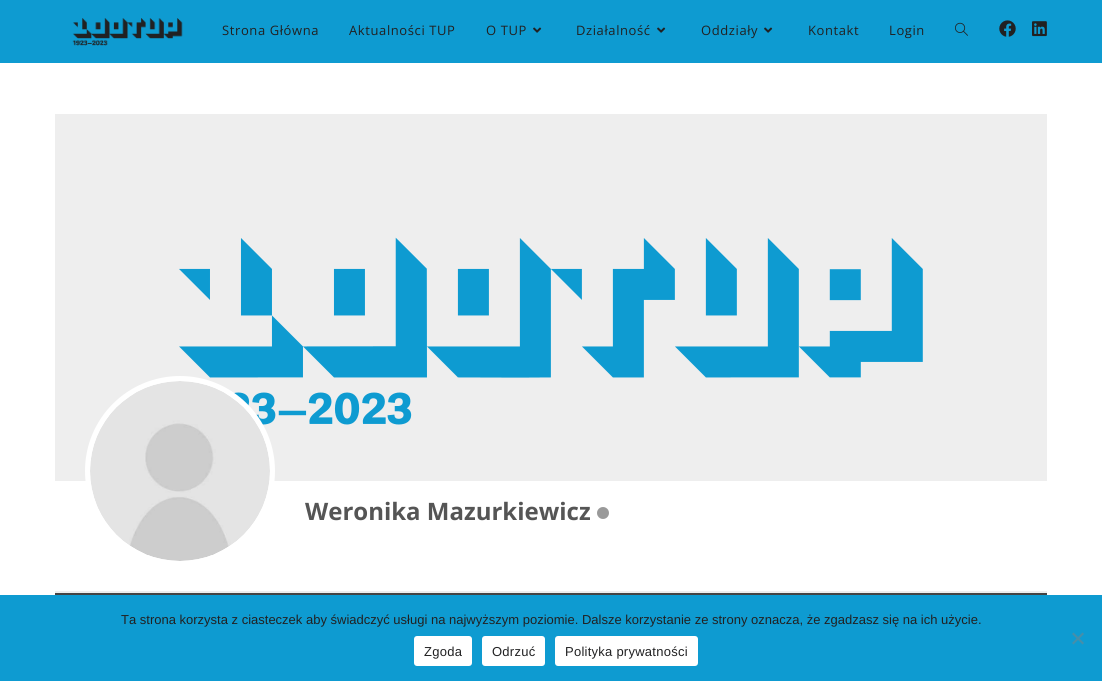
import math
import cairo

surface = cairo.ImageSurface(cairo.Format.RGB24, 1102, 681)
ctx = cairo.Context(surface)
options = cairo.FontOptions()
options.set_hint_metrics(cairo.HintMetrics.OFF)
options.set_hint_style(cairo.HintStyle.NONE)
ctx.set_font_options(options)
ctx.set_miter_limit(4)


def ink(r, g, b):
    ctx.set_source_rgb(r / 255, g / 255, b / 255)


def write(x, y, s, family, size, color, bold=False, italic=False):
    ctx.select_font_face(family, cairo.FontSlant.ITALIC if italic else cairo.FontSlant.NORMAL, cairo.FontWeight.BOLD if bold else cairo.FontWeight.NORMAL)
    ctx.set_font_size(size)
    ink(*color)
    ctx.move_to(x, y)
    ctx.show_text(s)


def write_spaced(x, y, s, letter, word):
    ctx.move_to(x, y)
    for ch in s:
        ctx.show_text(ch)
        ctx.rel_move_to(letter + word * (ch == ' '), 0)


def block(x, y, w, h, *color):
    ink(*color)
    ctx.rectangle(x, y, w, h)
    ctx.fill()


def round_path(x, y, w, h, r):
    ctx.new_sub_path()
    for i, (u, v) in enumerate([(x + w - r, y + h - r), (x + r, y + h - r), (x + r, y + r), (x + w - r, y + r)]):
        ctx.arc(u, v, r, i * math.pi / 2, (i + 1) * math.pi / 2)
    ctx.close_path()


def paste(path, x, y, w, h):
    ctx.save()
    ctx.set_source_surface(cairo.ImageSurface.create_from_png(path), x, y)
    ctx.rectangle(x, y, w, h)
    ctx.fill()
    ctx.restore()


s1 = dict(family="Open Sans", size=24, color=(85, 85, 85), bold=True)
s2 = dict(family="Liberation Sans", size=13, color=(33, 33, 34))

ink(255, 255, 255)
ctx.paint()
block(0, 0, 1102, 63, 14, 155, 209)
paste("pic1.png", 72, 18, 111, 28)
ctx.select_font_face("Open Sans")
ctx.set_font_size(13)
ink(33, 33, 34)
write_spaced(222, 35, "Strona Główna", 0.6, 0)
write_spaced(349, 35, "Aktualności TUP", 0.6, 0)
write_spaced(486, 35, "O TUP", 0.6, 0)
paste("pic2.png", 533, 27, 9, 6)
write_spaced(576, 35, "Działalność", 0.6, 0)
paste("pic2.png", 657, 27, 9, 6)
write_spaced(701, 35, "Oddziały", 0.6, 0)
paste("pic2.png", 764, 27, 9, 6)
write_spaced(808, 35, "Kontakt", 0.6, 0)
write_spaced(889, 35, "Login", 0.6, 0)
paste("pic3.png", 955, 22, 13, 14)
paste("pic4.png", 999, 20, 17, 17)
paste("pic5.png", 1032, 21, 15, 16)
block(55, 114, 992, 367, 238, 238, 238)
paste("pic6.png", 179, 237, 744, 188)
block(55, 591, 992, 2, 238, 238, 238)
ink(255, 255, 255)
ctx.arc(180, 471, 92.5, 0, 2 * math.pi)
ctx.fill_preserve()
ctx.set_line_width(5)
ctx.stroke()
paste("pic7.png", 90, 381, 180, 180)
write(305, 520, "Weronika Mazurkiewicz", **s1)
paste("pic8.png", 597, 507, 12, 12)
block(55, 593, 992, 2, 68, 68, 68)
block(0, 595, 1102, 86, 14, 155, 209)
write(121, 624, "Ta strona korzysta z ciasteczek aby świadczyć usługi na najwyższym poziomie. Dalsze korzystanie ze strony oznacza, że zgadzasz się na ich użycie.", **s2)
ink(71, 142, 169)
ctx.new_path()
ctx.move_to(1082.5, 632.5)
ctx.line_to(1084, 634)
ctx.line_to(1073.5, 644.5)
ctx.line_to(1072, 643)
ctx.close_path()
ctx.fill()
ctx.new_path()
ctx.move_to(1072, 634)
ctx.line_to(1073.5, 632.5)
ctx.line_to(1084, 643)
ctx.line_to(1082.5, 644.5)
ctx.close_path()
ctx.fill()
ink(255, 255, 255)
round_path(414, 636, 58, 30, 3)
ctx.fill()
ink(33, 33, 34)
write_spaced(424, 656, "Zgoda", 0.25, 0)
ink(255, 255, 255)
round_path(482, 636, 63, 30, 3)
ctx.fill()
ink(33, 33, 34)
write_spaced(492, 656, "Odrzuć", 0.25, 0)
ink(255, 255, 255)
round_path(555, 636, 143, 30, 3)
ctx.fill()
ink(33, 33, 34)
write_spaced(565, 656, "Polityka prywatności", 0.25, 0)
surface.write_to_png("screenshot.png")
